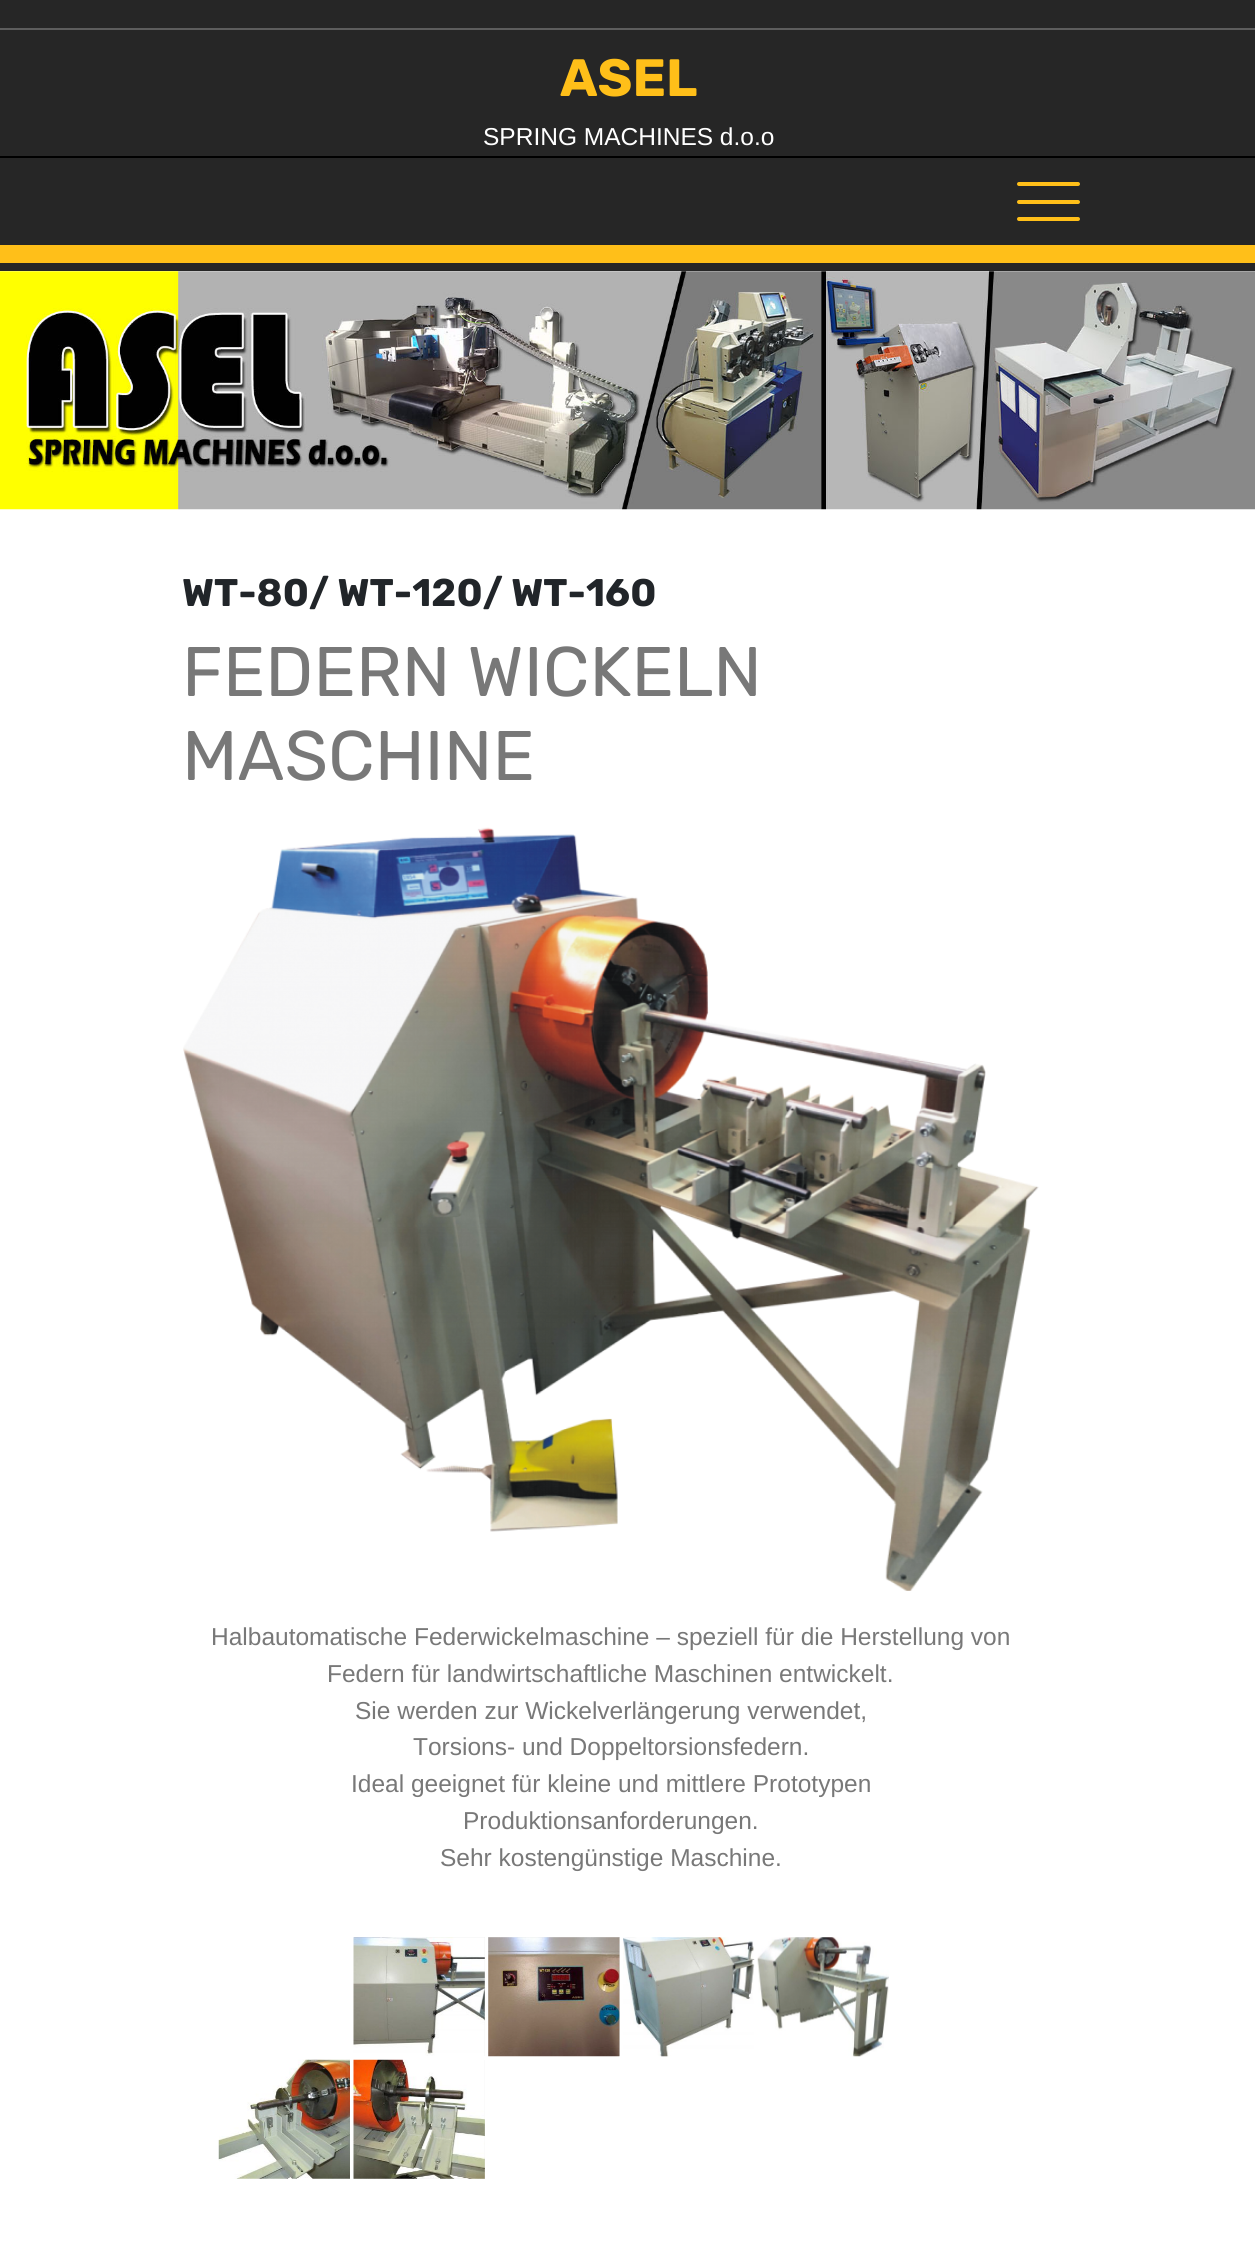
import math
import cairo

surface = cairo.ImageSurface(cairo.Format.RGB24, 1255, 2263)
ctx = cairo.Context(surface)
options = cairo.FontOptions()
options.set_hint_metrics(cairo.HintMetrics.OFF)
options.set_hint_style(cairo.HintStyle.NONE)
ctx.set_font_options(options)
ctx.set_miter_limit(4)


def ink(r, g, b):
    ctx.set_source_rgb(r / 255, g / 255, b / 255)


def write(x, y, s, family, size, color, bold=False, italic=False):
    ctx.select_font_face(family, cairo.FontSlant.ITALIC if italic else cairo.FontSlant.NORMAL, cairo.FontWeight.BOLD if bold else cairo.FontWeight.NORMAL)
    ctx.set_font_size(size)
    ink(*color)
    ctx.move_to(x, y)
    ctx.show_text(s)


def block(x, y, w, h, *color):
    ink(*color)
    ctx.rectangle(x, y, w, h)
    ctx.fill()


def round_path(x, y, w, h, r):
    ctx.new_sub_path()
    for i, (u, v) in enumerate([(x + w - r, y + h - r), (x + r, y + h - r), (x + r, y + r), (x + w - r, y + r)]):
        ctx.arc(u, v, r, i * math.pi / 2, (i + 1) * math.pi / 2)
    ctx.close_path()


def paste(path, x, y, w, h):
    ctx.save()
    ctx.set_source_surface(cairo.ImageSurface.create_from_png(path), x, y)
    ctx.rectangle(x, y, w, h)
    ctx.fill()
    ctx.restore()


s1 = dict(family="Rubik", size=52.5, color=(255, 191, 25), bold=True)
s2 = dict(family="Liberation Sans", size=24.5, color=(255, 255, 255))
s3 = dict(family="Rubik", size=38.5, color=(33, 37, 41), bold=True)
s4 = dict(family="Rubik", size=70, color=(120, 120, 120))
s5 = dict(family="Liberation Sans", size=24.5, color=(120, 120, 120))

ink(255, 255, 255)
ctx.paint()
block(0, 0, 1255, 271, 38, 38, 38)
block(0, 28, 1255, 2, 93, 93, 93)
write(560, 96, "ASEL", **s1)
write(483, 145, "SPRING MACHINES d.o.o", **s2)
block(0, 156, 1255, 2, 0, 0, 0)
block(0, 245, 1255, 18, 255, 191, 25)
round_path(1017, 182, 63, 4, 2)
ctx.fill()
round_path(1017, 200, 63, 4, 2)
ctx.fill()
round_path(1017, 217, 63, 4, 2)
ctx.fill()
paste("pic1.png", 0, 271, 1255, 239)
write(182, 606, "WT-80/ WT-120/ WT-160", **s3)
write(182, 696, "FEDERN WICKELN", **s4)
write(182, 780, "MASCHINE", **s4)
paste("pic2.png", 183, 827, 856, 764)
write(211, 1645, "Halbautomatische Federwickelmaschine – speziell für die Herstellung von", **s5)
write(327, 1682, "Federn für landwirtschaftliche Maschinen entwickelt.", **s5)
write(355, 1719, "Sie werden zur Wickelverlängerung verwendet,", **s5)
write(413, 1755, "Torsions- und Doppeltorsionsfedern.", **s5)
write(351, 1792, "Ideal geeignet für kleine und mittlere Prototypen", **s5)
write(463, 1829, "Produktionsanforderungen.", **s5)
write(440, 1866, "Sehr kostengünstige Maschine.", **s5)
block(354, 1937, 131, 119, 230, 230, 230)
paste("pic3.png", 353, 1937, 132, 119)
block(488, 1937, 132, 119, 230, 230, 230)
paste("pic4.png", 488, 1937, 132, 120)
paste("pic5.png", 623, 1937, 132, 120)
paste("pic6.png", 757, 1937, 132, 120)
paste("pic7.png", 218, 2059, 132, 120)
block(354, 2060, 131, 119, 230, 230, 230)
paste("pic8.png", 353, 2059, 132, 120)
surface.write_to_png("screenshot.png")
